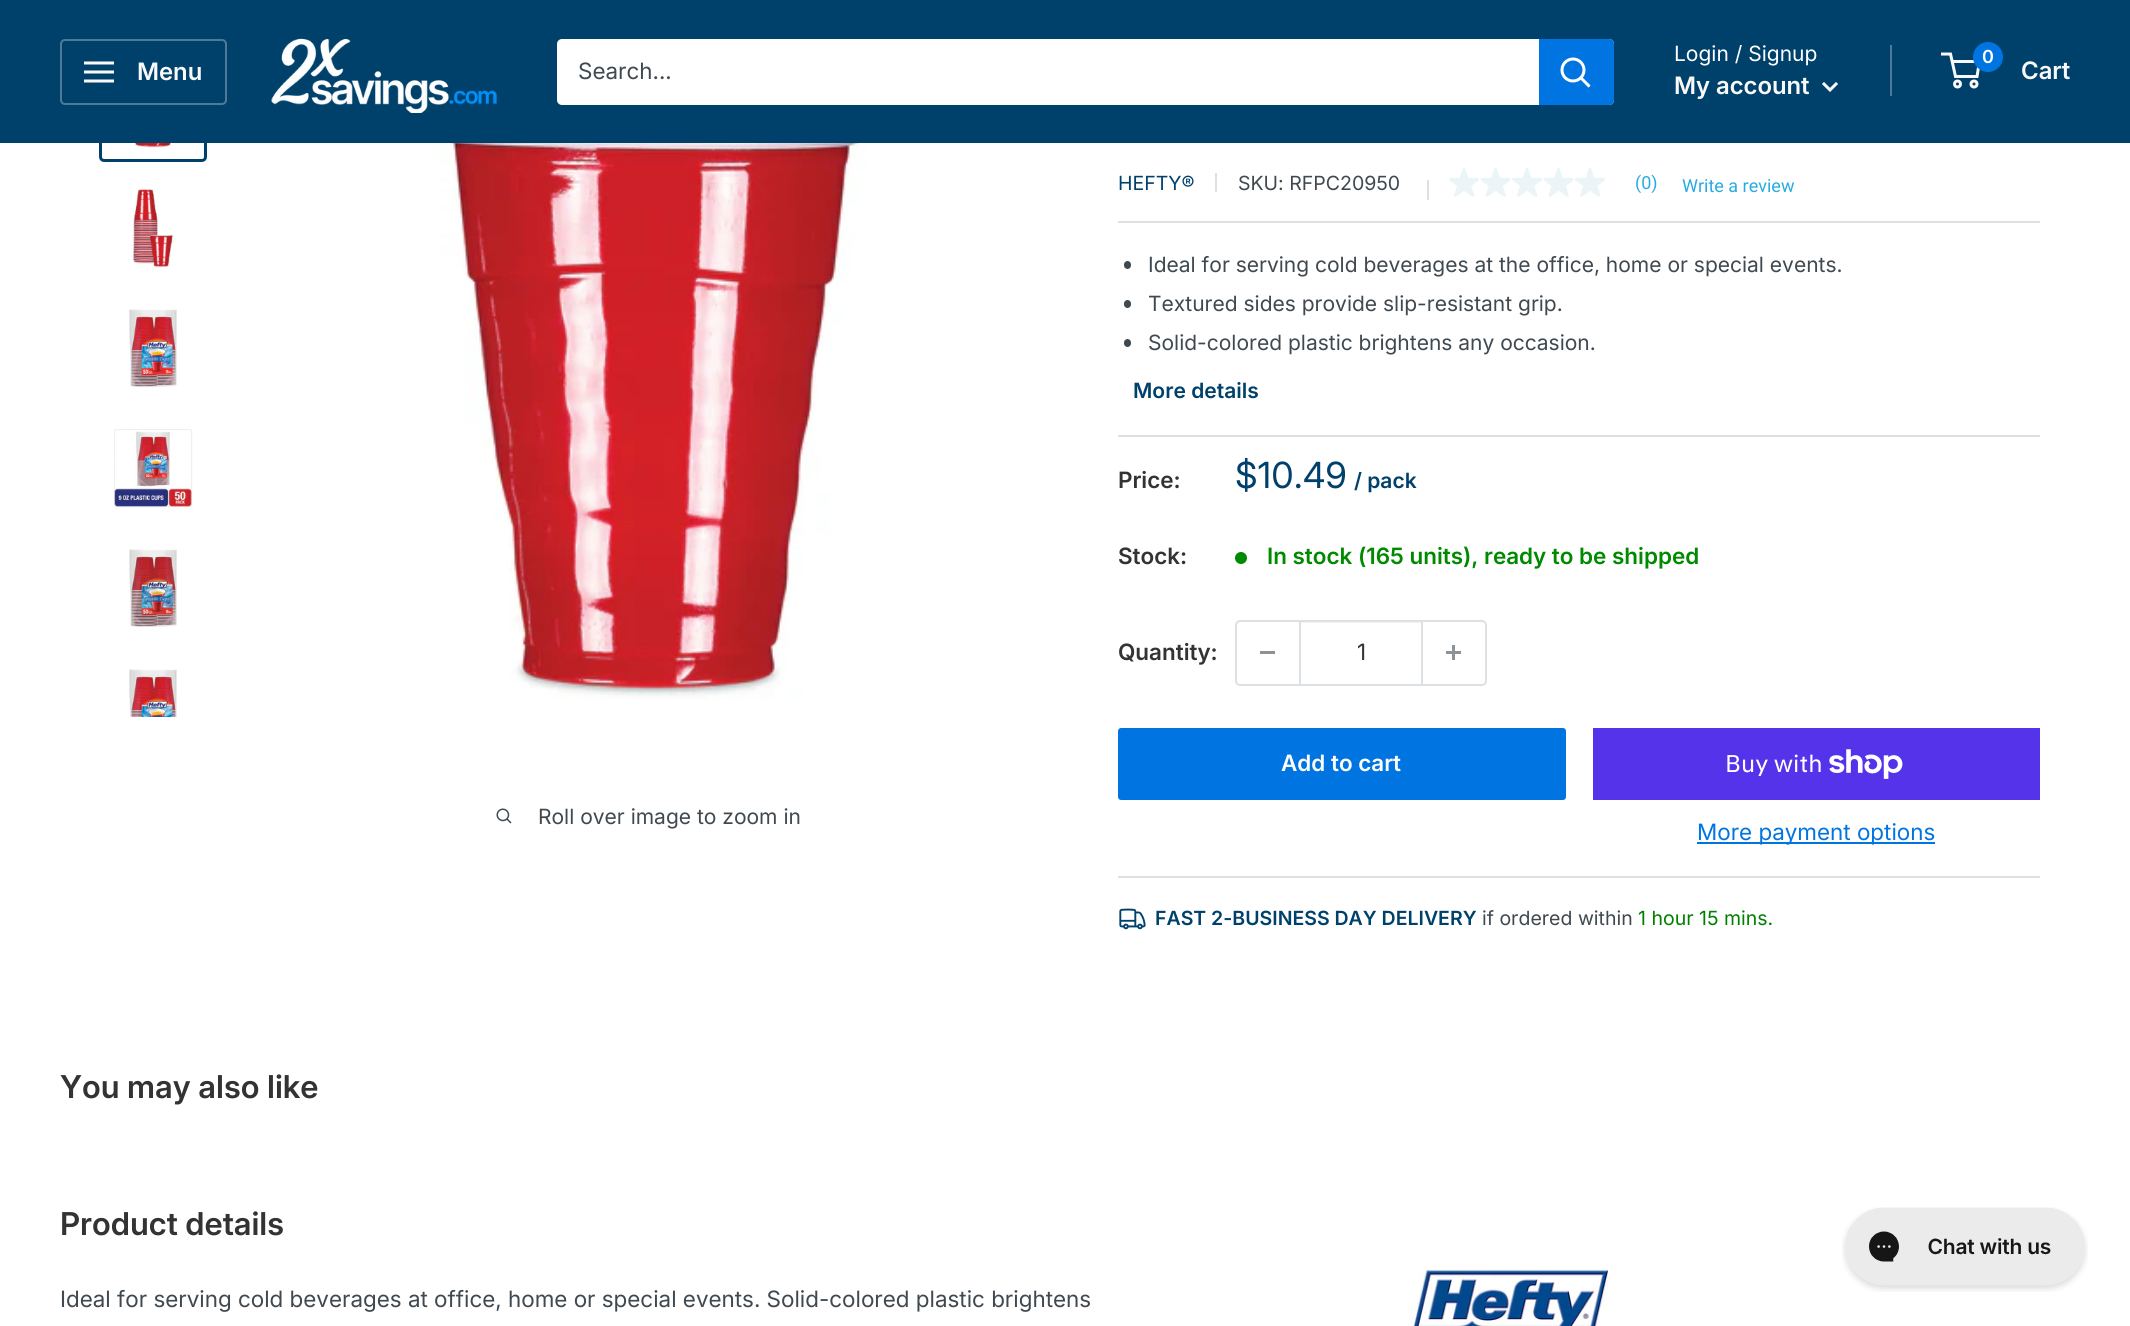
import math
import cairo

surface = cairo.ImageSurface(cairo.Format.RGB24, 2130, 1326)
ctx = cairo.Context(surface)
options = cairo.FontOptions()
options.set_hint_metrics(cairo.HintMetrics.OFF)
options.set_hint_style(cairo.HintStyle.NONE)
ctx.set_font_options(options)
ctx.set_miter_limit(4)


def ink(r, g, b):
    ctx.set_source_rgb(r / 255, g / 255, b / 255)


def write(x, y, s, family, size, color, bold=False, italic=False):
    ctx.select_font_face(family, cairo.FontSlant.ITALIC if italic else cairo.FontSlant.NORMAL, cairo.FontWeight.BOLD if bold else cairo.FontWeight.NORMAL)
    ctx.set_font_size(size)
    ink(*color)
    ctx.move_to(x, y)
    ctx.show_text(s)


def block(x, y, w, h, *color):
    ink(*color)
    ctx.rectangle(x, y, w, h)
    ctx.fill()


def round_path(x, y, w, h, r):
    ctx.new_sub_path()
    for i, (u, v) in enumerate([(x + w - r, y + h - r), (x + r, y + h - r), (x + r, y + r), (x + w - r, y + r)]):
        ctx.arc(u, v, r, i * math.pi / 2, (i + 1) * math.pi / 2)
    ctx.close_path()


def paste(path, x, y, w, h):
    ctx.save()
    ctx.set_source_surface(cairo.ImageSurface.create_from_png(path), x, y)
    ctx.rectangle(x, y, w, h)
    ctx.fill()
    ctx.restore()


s1 = dict(family="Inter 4 SemiBold", size=24, color=(249, 249, 249))
s2 = dict(family="Inter", size=22.5, color=(64, 73, 80))
s3 = dict(family="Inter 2", size=21, color=(255, 255, 255))
s4 = dict(family="Inter 2 SemiBold", size=18, color=(255, 255, 255))
s5 = dict(family="Inter 2", size=21, color=(64, 73, 80))
s6 = dict(family="Inter 2", size=19.5, color=(0, 65, 108))
s7 = dict(family="Inter 2", size=19.5, color=(64, 73, 80))
s8 = dict(family="Roboto", size=18, color=(41, 171, 226))
s9 = dict(family="Inter 2 SemiBold", size=21, color=(0, 65, 108))
s10 = dict(family="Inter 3 SemiBold", size=22.5, color=(51, 51, 51))
s11 = dict(family="Inter 3", size=36, color=(0, 65, 108))
s12 = dict(family="Inter 3 SemiBold", size=22.5, color=(0, 138, 0))
s13 = dict(family="Inter", size=22.5, color=(51, 51, 51))
s14 = dict(family="Inter 3 SemiBold", size=22.5, color=(255, 255, 255))
s15 = dict(family="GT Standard", size=24, color=(255, 255, 255))
s16 = dict(family="Inter", size=22.5, color=(0, 117, 225))
s17 = dict(family="Inter 2 SemiBold", size=19.5, color=(0, 65, 108))
s18 = dict(family="Inter 2", size=19.5, color=(0, 128, 0))
s19 = dict(family="Inter SemiBold", size=31.5, color=(51, 51, 51))

ink(255, 255, 255)
ctx.paint()
round_path(100.5, 55.5, 105, 105, 3.5)
ink(0, 65, 108)
ctx.set_line_width(3)
ctx.stroke()
block(0, 0, 2130, 143, 0, 65, 108)
round_path(61, 40, 165, 64, 4)
ink(77, 122, 152)
ctx.set_line_width(2)
ctx.stroke()
paste("pic1.png", 84, 61, 30, 22)
write(137, 80, "Menu", **s1)
paste("pic2.png", 271, 38, 226, 75)
ink(255, 255, 255)
round_path(557, 39, 1057, 66, 5)
ctx.fill()
write(578, 79, "Search...", **s2)
ink(0, 117, 225)
ctx.new_path()
ctx.move_to(1539, 39)
ctx.line_to(1609, 39)
ctx.curve_to(1612, 39, 1614, 41, 1614, 44)
ctx.line_to(1614, 100)
ctx.curve_to(1614, 103, 1612, 105, 1609, 105)
ctx.line_to(1539, 105)
ctx.close_path()
ctx.fill()
ctx.new_path()
ctx.move_to(1588.5, 85.5)
ctx.line_to(1581, 78)
ink(255, 255, 255)
ctx.set_line_width(3)
ctx.set_line_cap(cairo.LineCap.SQUARE)
ctx.stroke()
ctx.arc(1573, 70, 11, 0, 2 * math.pi)
ctx.set_line_cap(cairo.LineCap.BUTT)
ctx.stroke()
write(1674, 61, "Login / Signup", **s3)
block(1890, 45, 2, 51, 77, 122, 152)
write(1674, 94, "My account", **s1)
ctx.new_path()
ctx.move_to(1836, 84)
ctx.line_to(1830, 90)
ctx.line_to(1824, 84)
ctx.set_line_cap(cairo.LineCap.SQUARE)
ctx.stroke()
ctx.arc(1957.5, 84, 3, 0, 2 * math.pi)
ctx.set_line_cap(cairo.LineCap.BUTT)
ctx.stroke()
ctx.arc(1974, 84, 3, 0, 2 * math.pi)
ctx.stroke()
ctx.new_path()
ctx.move_to(1952, 61.5)
ctx.line_to(1979.5, 61.5)
ctx.line_to(1977, 76.5)
ctx.line_to(1955.5, 76.5)
ctx.line_to(1950.5, 54)
ctx.line_to(1941, 54)
ctx.stroke()
ink(0, 117, 225)
ctx.arc(1988, 57, 15, 0, 2 * math.pi)
ctx.fill()
write(1982, 63, "0", **s4)
write(2021, 79, "Cart", **s1)
paste("pic3.png", 124, 143, 60, 6)
paste("pic4.png", 132, 188, 42, 81)
paste("pic5.png", 129, 309, 50, 79)
paste("pic6.png", 111, 429, 82, 80)
paste("pic7.png", 129, 549, 48, 79)
paste("pic8.png", 129, 669, 48, 48)
paste("pic9.png", 440, 143, 426, 557)
paste("pic10.png", 496, 808, 16, 16)
write(538, 824, "Roll over image to zoom in", **s5)
write(1118, 190, "HEFTY®", **s6)
block(1215, 173, 2, 19, 222, 225, 228)
write(1238, 190, "SKU: RFPC20950", **s7)
block(1427, 180, 2, 20, 222, 225, 228)
paste("pic11.png", 1449, 168, 30, 29)
paste("pic12.png", 1480, 168, 31, 29)
paste("pic11.png", 1512, 168, 30, 29)
paste("pic12.png", 1543, 168, 31, 29)
paste("pic11.png", 1575, 168, 30, 29)
write(1635, 189, "(0)", **s8)
write(1682, 192, "Write a review", **s8)
block(1118, 221, 922, 2, 222, 225, 228)
ink(64, 73, 80)
round_path(1124, 261, 7, 8, 3.5)
ctx.fill()
write(1148, 272, "Ideal for serving cold beverages at the office, home or special events.", **s5)
round_path(1124, 300, 7, 8, 3.5)
ctx.fill()
write(1148, 311, "Textured sides provide slip-resistant grip.", **s5)
round_path(1124, 339, 7, 8, 3.5)
ctx.fill()
write(1148, 350, "Solid-colored plastic brightens any occasion.", **s5)
write(1133, 398, "More details", **s9)
block(1118, 435, 922, 2, 222, 225, 228)
write(1118, 488, "Price:", **s10)
write(1235, 488, "$10.49", **s11)
write(1354, 488, "/ pack", **s9)
write(1118, 564, "Stock:", **s10)
ink(0, 138, 0)
ctx.new_path()
ctx.arc(1241, 558, 6, 0, 2 * math.pi)
ctx.fill()
write(1267, 564, "In stock (165 units), ready to be shipped", **s12)
write(1118, 660, "Quantity:", **s10)
round_path(1236, 621, 250, 64, 4)
ink(222, 225, 228)
ctx.set_line_width(2)
ctx.stroke()
block(1260, 651, 15, 3, 140, 146, 150)
ctx.set_source_rgba(0.871, 0.882, 0.894, 0.4)
ctx.rectangle(1301, 622, 120, 1)
ctx.fill()
block(1421, 621, 2, 63, 222, 225, 228)
block(1299, 621, 2, 63, 222, 225, 228)
write(1357, 660, "1", **s13)
paste("pic13.png", 1446, 645, 15, 15)
ink(0, 117, 225)
round_path(1118, 728, 448, 72, 3)
ctx.fill()
write(1281, 771, "Add to cart", **s14)
block(1593, 728, 447, 72, 84, 51, 235)
write(1725, 772, "Buy with", **s15)
paste("pic14.png", 1829, 749, 74, 30)
block(1697, 842, 238, 2, 0, 117, 225)
write(1697, 840, "More payment options", **s16)
block(1118, 876, 922, 2, 222, 225, 228)
paste("pic15.png", 1119, 908, 27, 22)
write(1155, 925, "FAST 2-BUSINESS DAY DELIVERY", **s17)
write(1482, 925, "if ordered within", **s7)
write(1638, 925, "1 hour 15 mins.", **s18)
write(60, 1098, "You may also like", **s19)
write(60, 1235, "Product details", **s19)
write(60, 1307, "Ideal for serving cold beverages at office, home or special events. Solid-colored plastic brightens", **s2)
paste("pic16.png", 1413, 1269, 195, 57)
paste("pic17.png", 1842, 1207, 246, 85)
surface.write_to_png("screenshot.png")
